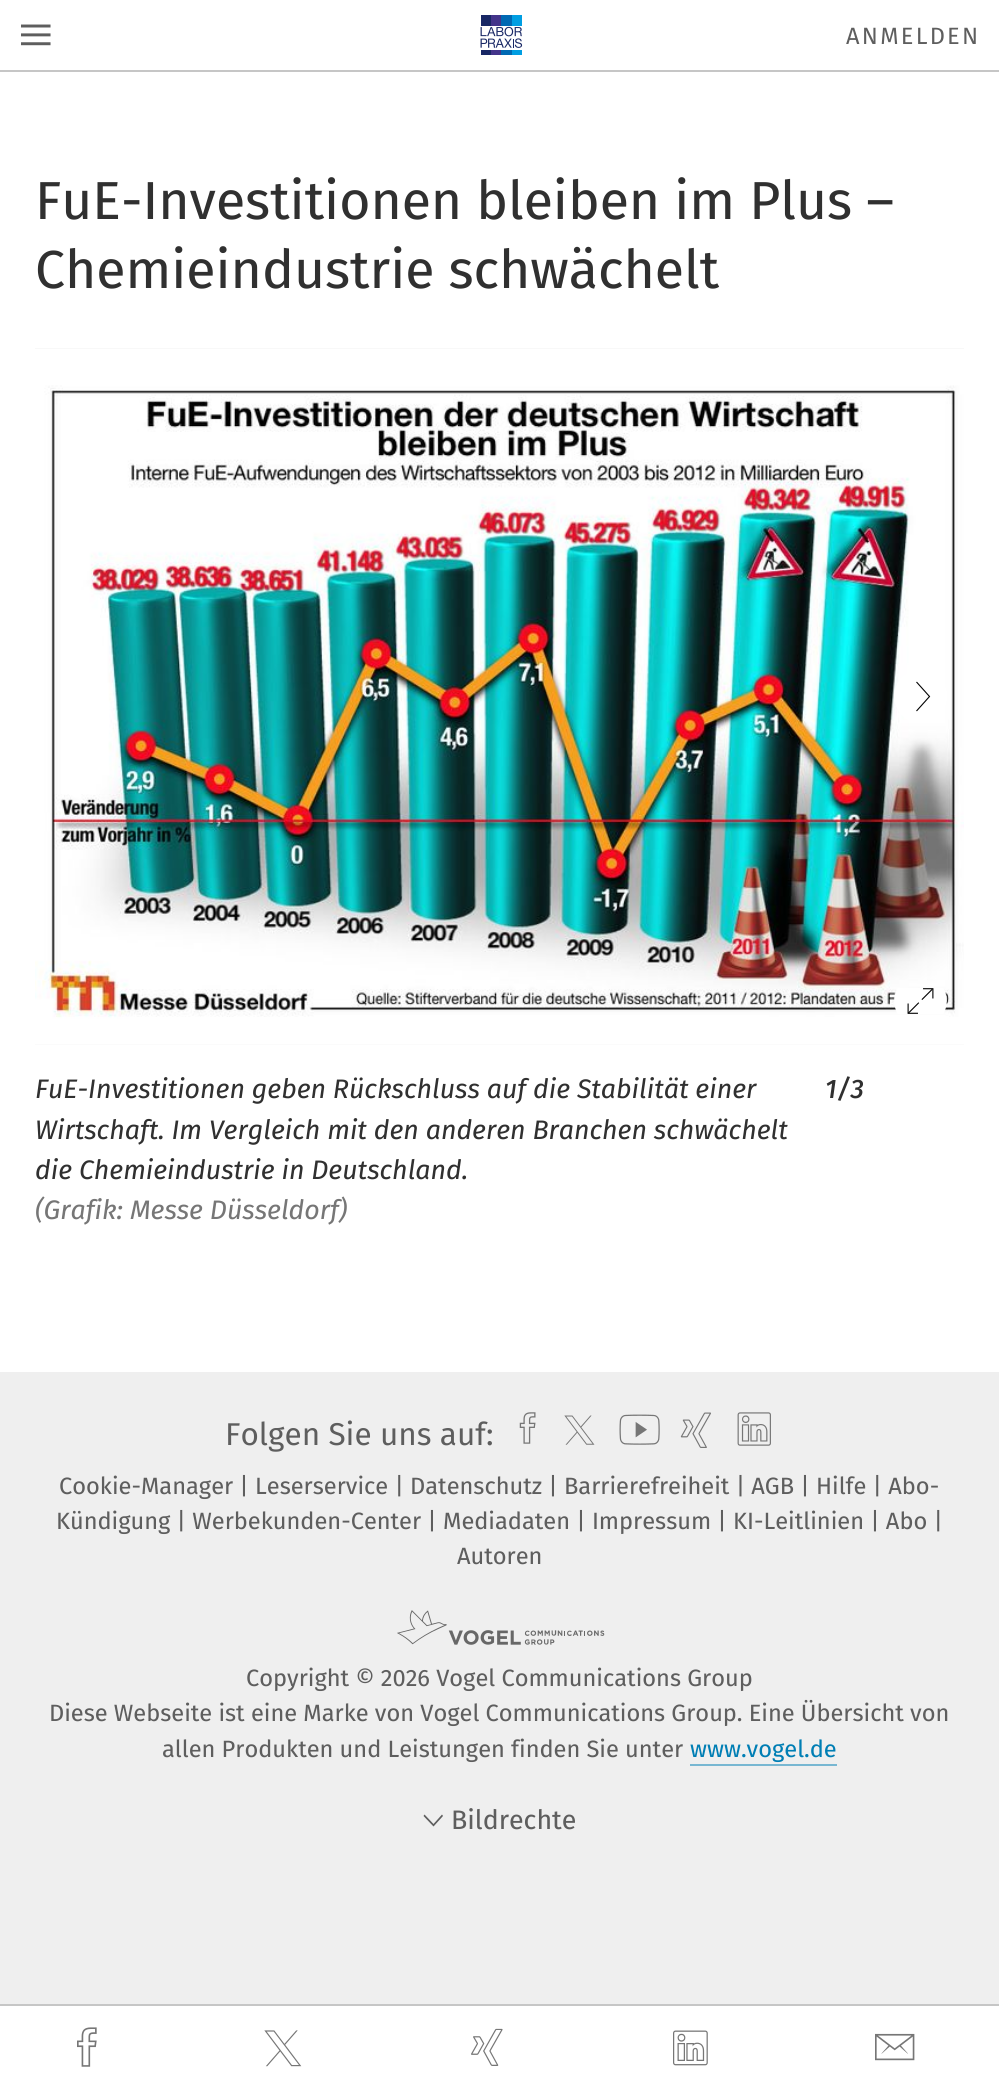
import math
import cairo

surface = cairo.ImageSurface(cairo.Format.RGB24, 999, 2090)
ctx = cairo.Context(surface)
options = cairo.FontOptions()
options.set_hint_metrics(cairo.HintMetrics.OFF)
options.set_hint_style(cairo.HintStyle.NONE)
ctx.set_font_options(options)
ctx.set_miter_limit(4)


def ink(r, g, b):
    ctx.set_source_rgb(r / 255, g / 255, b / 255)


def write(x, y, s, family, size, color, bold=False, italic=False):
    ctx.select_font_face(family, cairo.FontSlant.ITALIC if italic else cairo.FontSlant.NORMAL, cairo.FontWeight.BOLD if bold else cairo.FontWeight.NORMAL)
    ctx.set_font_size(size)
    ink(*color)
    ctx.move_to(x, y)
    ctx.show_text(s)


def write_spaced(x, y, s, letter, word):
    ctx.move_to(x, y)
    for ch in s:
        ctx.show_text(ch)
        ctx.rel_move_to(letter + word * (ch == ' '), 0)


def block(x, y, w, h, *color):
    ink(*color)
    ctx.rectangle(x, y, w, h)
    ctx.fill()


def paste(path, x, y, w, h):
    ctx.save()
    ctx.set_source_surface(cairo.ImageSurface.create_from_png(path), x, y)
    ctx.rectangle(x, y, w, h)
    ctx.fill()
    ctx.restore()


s1 = dict(family="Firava", size=53.5, color=(48, 48, 48))
s2 = dict(family="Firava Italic", size=26.75, color=(48, 48, 48), italic=True)
s3 = dict(family="Firava Italic", size=26.75, color=(118, 118, 118), italic=True)
s4 = dict(family="Firava Italic Medium", size=26.75, color=(48, 48, 48), italic=True)
s5 = dict(family="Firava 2", size=31.5, color=(94, 94, 94))
s6 = dict(family="Firava", size=23.6, color=(94, 94, 94))
s7 = dict(family="Firava", size=23.6, color=(0, 126, 180))
s8 = dict(family="Firava", size=26.75, color=(94, 94, 94))

ink(239, 239, 239)
ctx.paint()
block(0, 72, 999, 1300, 255, 255, 255)
block(0, 0, 999, 70, 255, 255, 255)
block(0, 70, 999, 2, 198, 198, 198)
paste("pic1.png", 21, 24, 30, 22)
paste("pic2.png", 480, 15, 43, 40)
ctx.select_font_face("Firava 2")
ctx.set_font_size(23.6)
ink(94, 94, 94)
write_spaced(846, 44, "ANMELDEN", 2.25, 0)
write(35, 219, "FuE-Investitionen bleiben im Plus –", **s1)
write(35, 288, "Chemieindustrie schwächelt", **s1)
block(35, 348, 929, 697, 239, 239, 239)
paste("pic3.png", 35, 348, 929, 697)
ink(255, 255, 255)
ctx.new_path()
ctx.move_to(920, 670)
ctx.curve_to(906, 670, 894, 682, 894, 696)
ctx.curve_to(894, 711, 906, 723, 920, 723)
ctx.curve_to(935, 723, 947, 711, 947, 696)
ctx.curve_to(947, 682, 935, 670, 920, 670)
ctx.fill()
ctx.new_path()
ctx.move_to(916.5, 711)
ctx.line_to(929.5, 696.5)
ctx.line_to(916.5, 682)
ink(0, 0, 0)
ctx.set_line_width(1.1)
ctx.stroke()
paste("pic4.png", 894, 988, 53, 26)
write(35, 1098, "FuE-Investitionen geben Rückschluss auf die Stabilität einer", **s2)
write(35, 1139, "Wirtschaft. Im Vergleich mit den anderen Branchen schwächelt", **s2)
write(35, 1179, "die Chemieindustrie in Deutschland.", **s2)
write(35, 1219, "(Grafik: Messe Düsseldorf)", **s3)
write(825, 1098, "1/3", **s4)
block(0, 2006, 999, 84, 255, 255, 255)
block(0, 2004, 999, 2, 198, 198, 198)
paste("pic5.png", 77, 2027, 20, 40)
paste("pic6.png", 264, 2030, 38, 37)
paste("pic7.png", 471, 2028, 32, 38)
paste("pic8.png", 673, 2030, 35, 36)
paste("pic9.png", 875, 2033, 40, 28)
write(225, 1445, "Folgen Sie uns auf:", **s5)
paste("pic10.png", 519, 1412, 17, 32)
paste("pic11.png", 564, 1415, 31, 30)
paste("pic12.png", 619, 1414, 41, 31)
paste("pic13.png", 680, 1412, 31, 36)
paste("pic14.png", 737, 1412, 34, 34)
write(59, 1494, "Cookie-Manager | Leserservice | Datenschutz | Barrierefreiheit | AGB | Hilfe | Abo-", **s6)
write(56, 1529, "Kündigung | Werbekunden-Center | Mediadaten | Impressum | KI-Leitlinien | Abo |", **s6)
write(457, 1564, "Autoren", **s6)
paste("pic15.png", 397, 1610, 208, 35)
write(246, 1686, "Copyright © 2026 Vogel Communications Group", **s6)
write(49, 1721, "Diese Webseite ist eine Marke von Vogel Communications Group. Eine Übersicht von", **s6)
write(162, 1757, "allen Produkten und Leistungen finden Sie unter", **s6)
write(690, 1757, "www.vogel.de", **s7)
block(690, 1764, 147, 2, 120, 183, 210)
ink(94, 94, 94)
ctx.new_path()
ctx.move_to(442, 1814.5)
ctx.line_to(443, 1816)
ctx.line_to(433.5, 1826.5)
ctx.line_to(423.5, 1816)
ctx.line_to(424.5, 1814.5)
ctx.line_to(433.5, 1824)
ctx.close_path()
ctx.fill()
write(451, 1829, "Bildrechte", **s8)
surface.write_to_png("screenshot.png")
